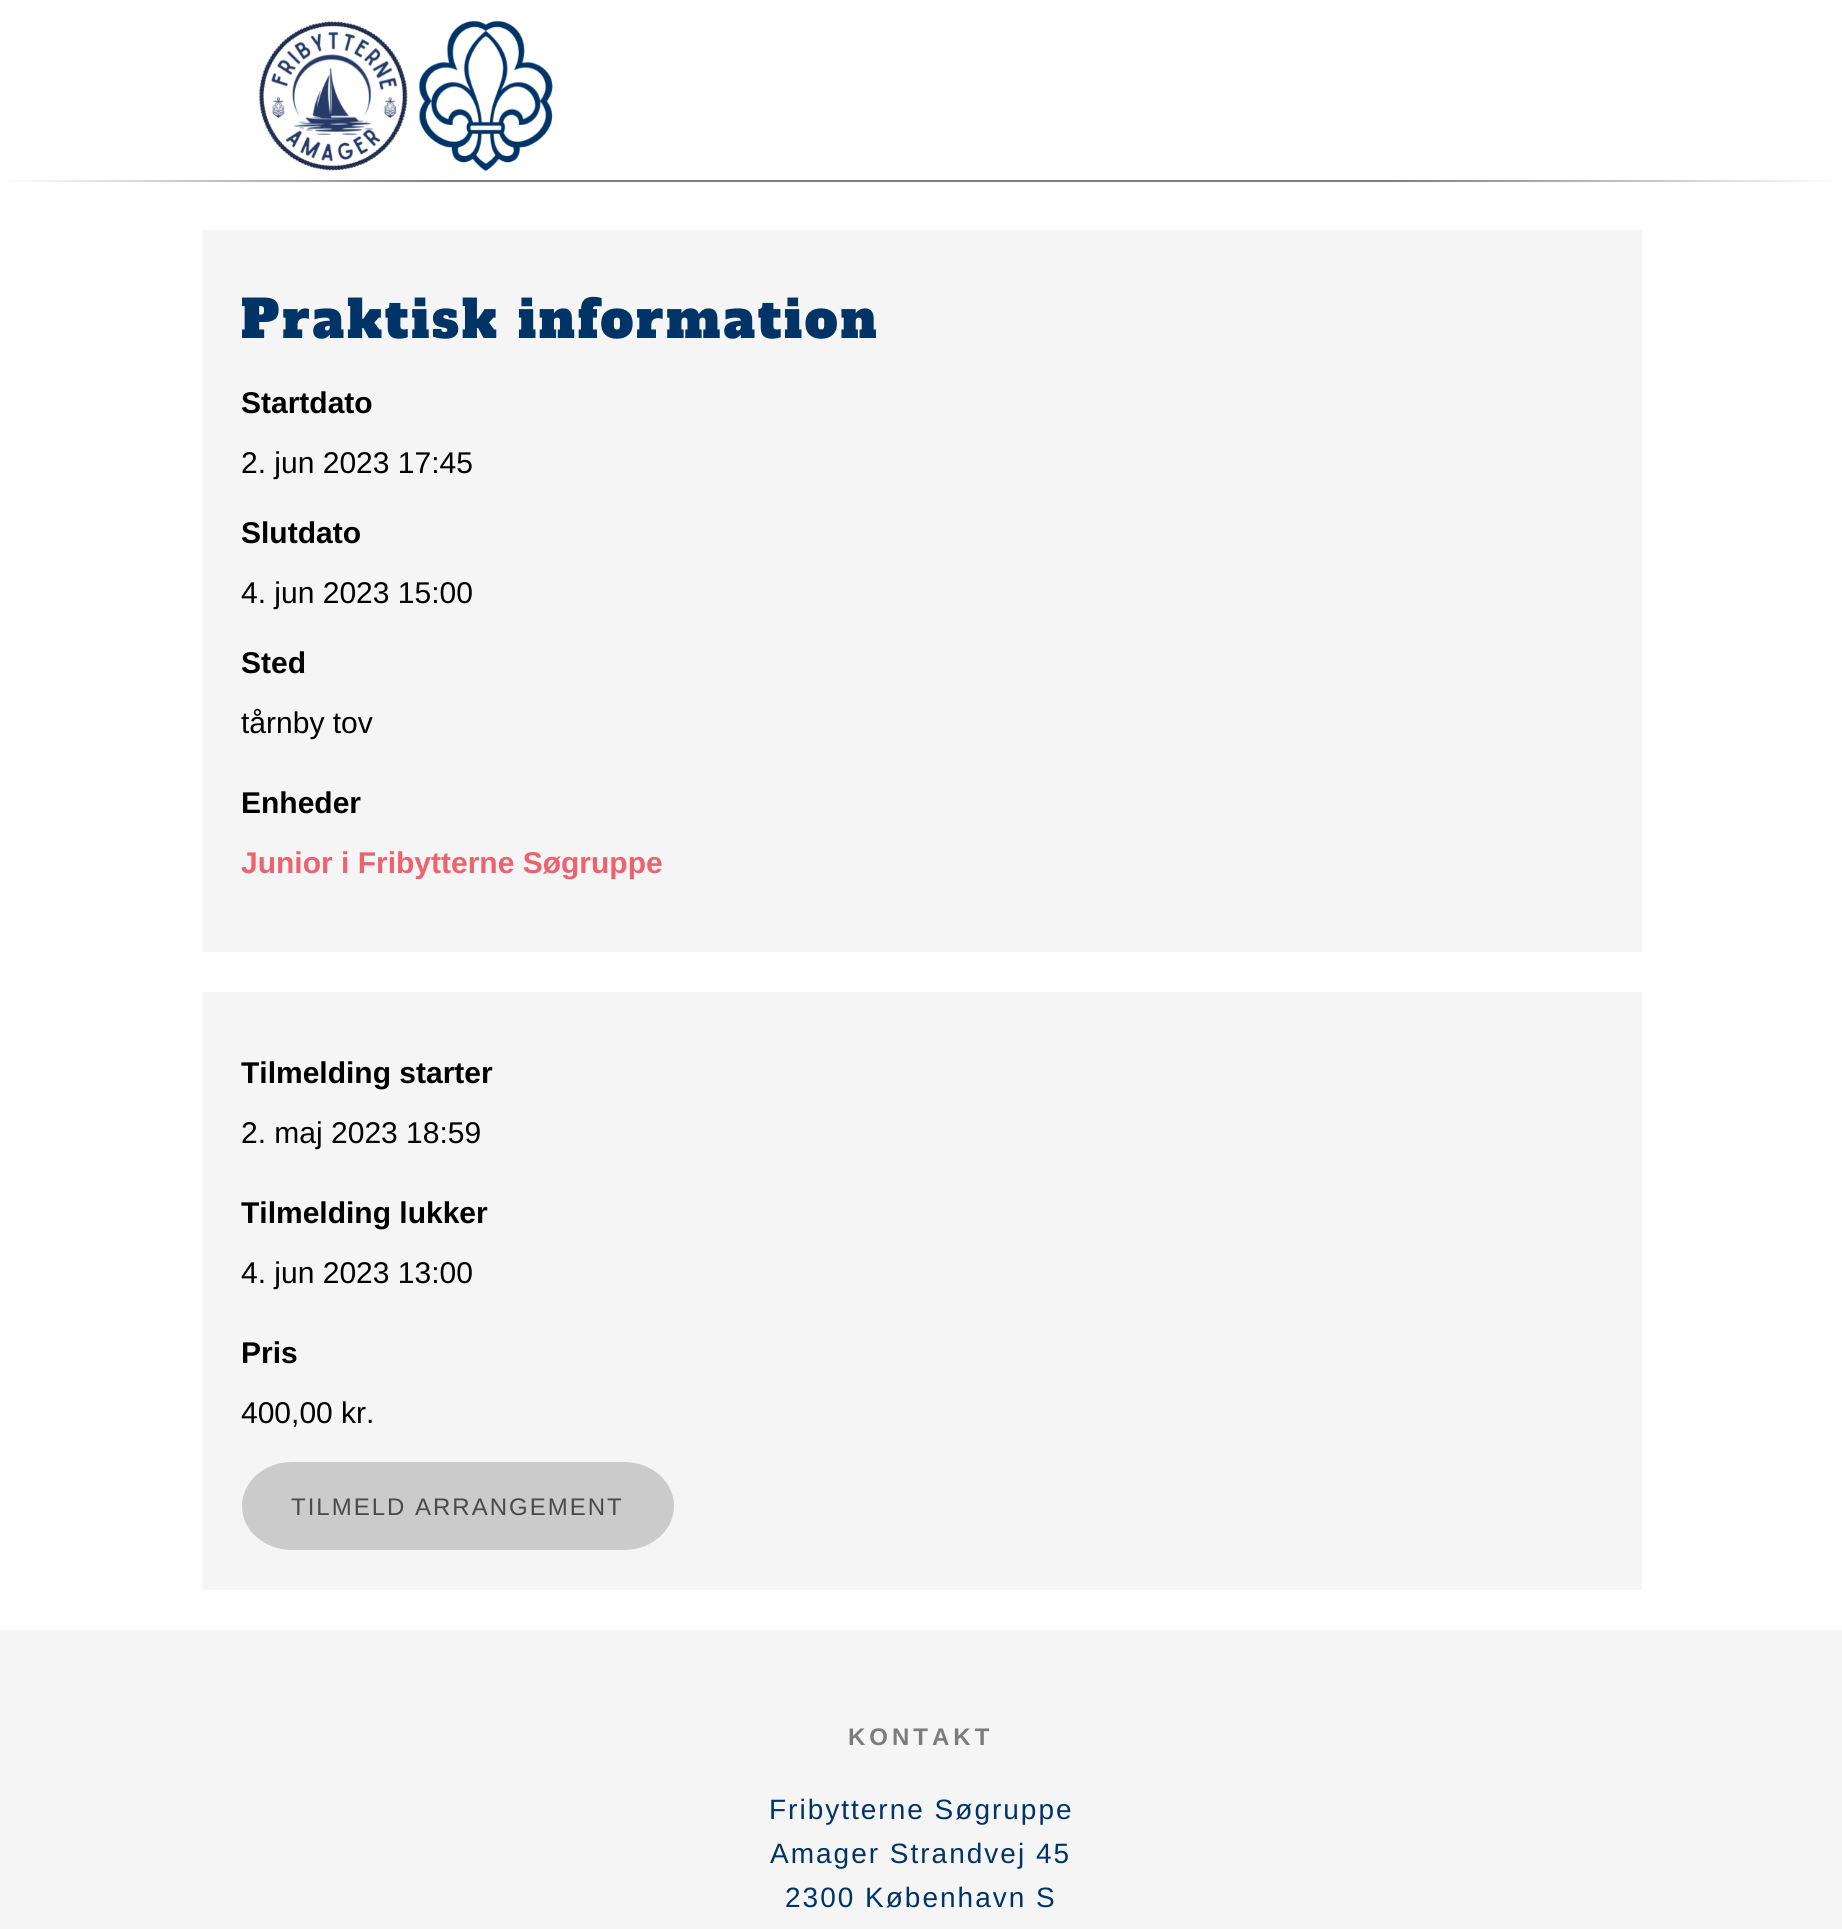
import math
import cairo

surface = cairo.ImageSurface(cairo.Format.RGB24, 1842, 1929)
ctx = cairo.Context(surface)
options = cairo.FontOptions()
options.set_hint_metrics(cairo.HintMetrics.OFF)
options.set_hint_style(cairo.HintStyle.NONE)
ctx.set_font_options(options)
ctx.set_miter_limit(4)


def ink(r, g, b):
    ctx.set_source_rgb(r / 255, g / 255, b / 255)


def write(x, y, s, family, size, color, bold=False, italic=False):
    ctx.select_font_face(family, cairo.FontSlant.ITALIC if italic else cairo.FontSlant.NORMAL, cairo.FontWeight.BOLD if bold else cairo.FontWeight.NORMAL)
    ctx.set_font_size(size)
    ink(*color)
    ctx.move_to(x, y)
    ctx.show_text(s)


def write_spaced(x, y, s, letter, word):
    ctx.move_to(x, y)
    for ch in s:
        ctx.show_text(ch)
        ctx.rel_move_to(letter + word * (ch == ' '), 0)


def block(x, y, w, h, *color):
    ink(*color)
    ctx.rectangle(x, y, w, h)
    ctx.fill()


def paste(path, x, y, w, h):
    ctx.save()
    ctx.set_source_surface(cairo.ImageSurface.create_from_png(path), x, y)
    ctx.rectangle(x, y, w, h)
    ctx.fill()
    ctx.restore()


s1 = dict(family="Liberation Sans", size=30, color=(0, 0, 0), bold=True)
s2 = dict(family="Liberation Sans", size=30, color=(0, 0, 0))
s3 = dict(family="Liberation Sans", size=30, color=(234, 99, 111), bold=True)

ink(255, 255, 255)
ctx.paint()
paste("pic1.png", 258, 20, 295, 152)
gradient = cairo.LinearGradient(1842, 181, 0, 181)
gradient.add_color_stop_rgba(0, 1, 1, 1, 1)
gradient.add_color_stop_rgba(0.25, 0.486, 0.486, 0.486, 1)
gradient.add_color_stop_rgba(0.75, 0.486, 0.486, 0.486, 1)
gradient.add_color_stop_rgba(1, 1, 1, 1, 1)
ctx.set_source(gradient)
ctx.rectangle(9, 180, 1824, 2)
ctx.fill()
block(202, 230, 1440, 722, 245, 245, 245)
ctx.select_font_face("Alfa Slab One")
ctx.set_font_size(52)
ink(0, 51, 102)
write_spaced(241, 338, "Praktisk information", 2.75, 0)
write(241, 413, "Startdato", **s1)
write(241, 473, "2. jun 2023 17:45", **s2)
write(241, 543, "Slutdato", **s1)
write(241, 603, "4. jun 2023 15:00", **s2)
write(241, 673, "Sted", **s1)
write(241, 733, "tårnby tov", **s2)
write(241, 813, "Enheder", **s1)
write(241, 873, "Junior i Fribytterne Søgruppe", **s3)
block(202, 992, 1440, 598, 245, 245, 245)
write(241, 1083, "Tilmelding starter", **s1)
write(241, 1143, "2. maj 2023 18:59", **s2)
write(241, 1223, "Tilmelding lukker", **s1)
write(241, 1283, "4. jun 2023 13:00", **s2)
write(241, 1363, "Pris", **s1)
write(241, 1423, "400,00 kr.", **s2)
block(292, 1462, 332, 88, 203, 203, 203)
ctx.new_path()
ctx.move_to(292, 1462)
ctx.curve_to(319.5, 1462, 342, 1481.5, 342, 1506)
ctx.curve_to(342, 1530.5, 319.5, 1550, 292, 1550)
ctx.curve_to(264.5, 1550, 242, 1530.5, 242, 1506)
ctx.curve_to(242, 1481.5, 264.5, 1462, 292, 1462)
ctx.close_path()
ctx.fill()
ctx.new_path()
ctx.move_to(624, 1462)
ctx.curve_to(651.5, 1462, 674, 1481.5, 674, 1506)
ctx.curve_to(674, 1530.5, 651.5, 1550, 624, 1550)
ctx.curve_to(596.5, 1550, 574, 1530.5, 574, 1506)
ctx.curve_to(574, 1481.5, 596.5, 1462, 624, 1462)
ctx.close_path()
ctx.fill()
ctx.set_font_size(24)
ink(74, 74, 74)
write_spaced(291, 1515, "TILMELD ARRANGEMENT", 2, 0)
block(0, 1630, 1842, 299, 245, 245, 245)
ctx.select_font_face("Liberation Sans", cairo.FontSlant.NORMAL, cairo.FontWeight.BOLD)
ink(124, 124, 124)
write_spaced(848, 1745, "KONTAKT", 4, 0)
ctx.select_font_face("Liberation Sans")
ctx.set_font_size(28)
ink(0, 51, 102)
write_spaced(769, 1819, "Fribytterne Søgruppe", 2, 0)
write_spaced(770, 1863, "Amager Strandvej 45", 2, 0)
write_spaced(785, 1907, "2300 København S", 2, 0)
surface.write_to_png("screenshot.png")
